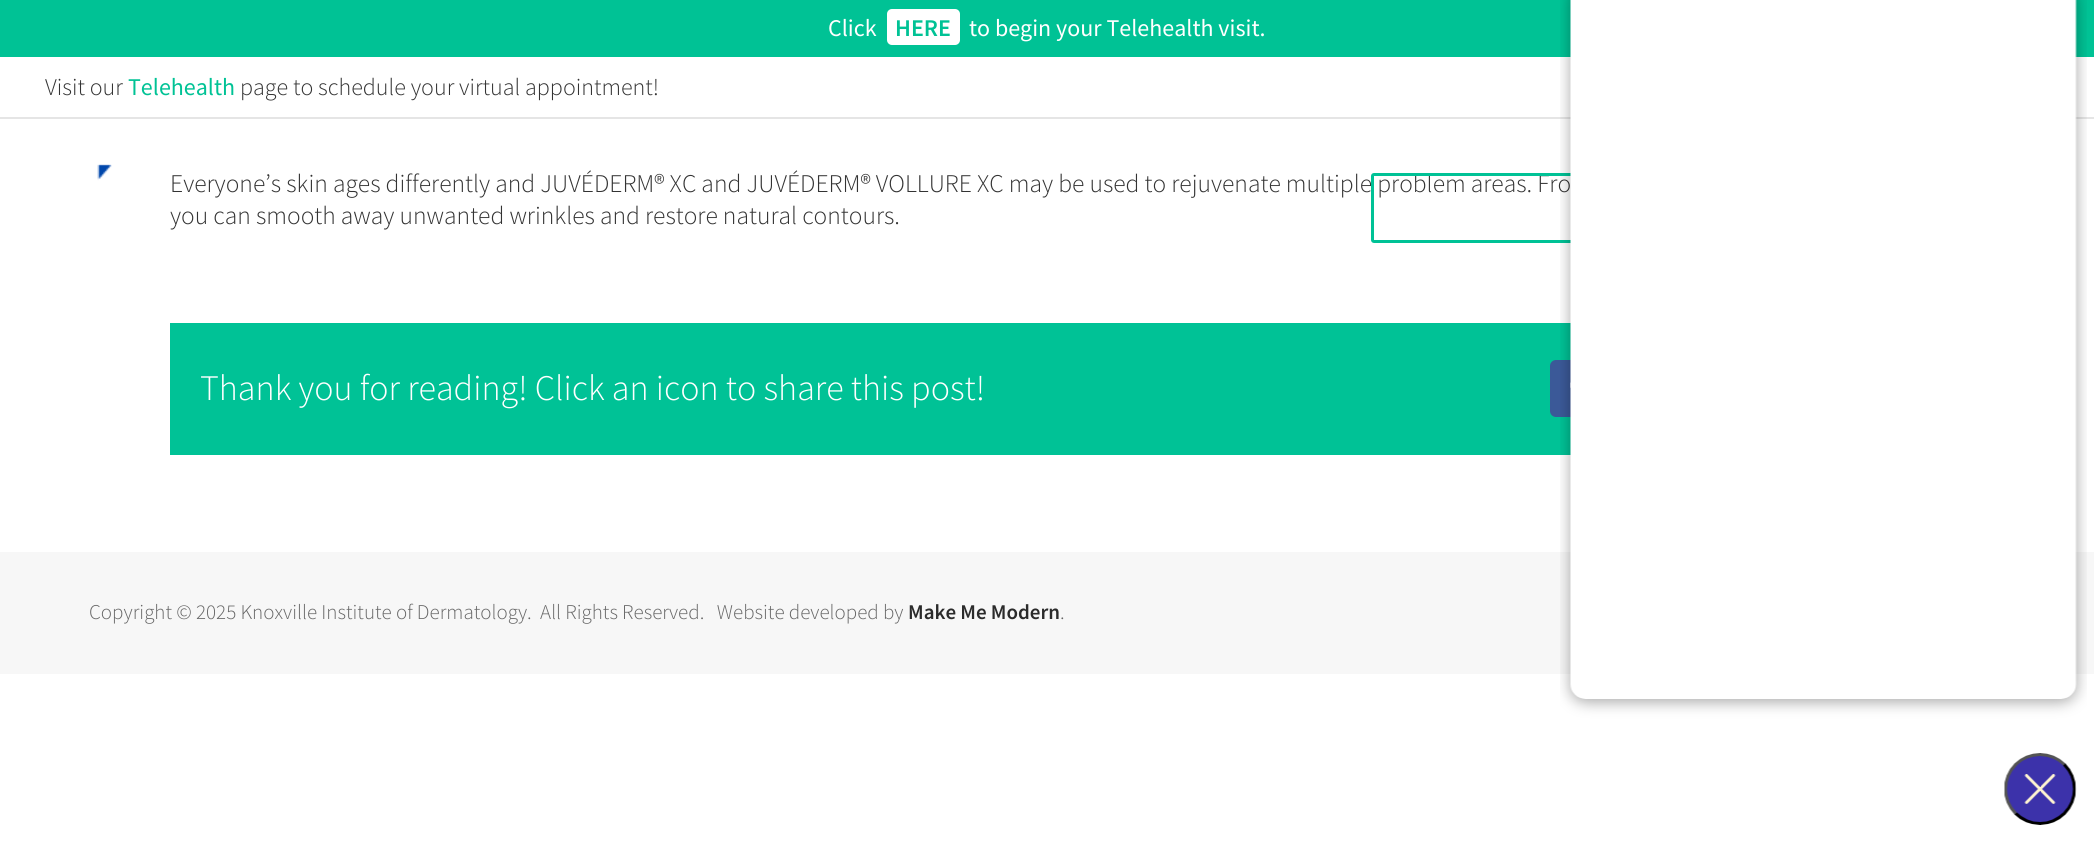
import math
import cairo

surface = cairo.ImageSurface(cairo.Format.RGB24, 2094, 843)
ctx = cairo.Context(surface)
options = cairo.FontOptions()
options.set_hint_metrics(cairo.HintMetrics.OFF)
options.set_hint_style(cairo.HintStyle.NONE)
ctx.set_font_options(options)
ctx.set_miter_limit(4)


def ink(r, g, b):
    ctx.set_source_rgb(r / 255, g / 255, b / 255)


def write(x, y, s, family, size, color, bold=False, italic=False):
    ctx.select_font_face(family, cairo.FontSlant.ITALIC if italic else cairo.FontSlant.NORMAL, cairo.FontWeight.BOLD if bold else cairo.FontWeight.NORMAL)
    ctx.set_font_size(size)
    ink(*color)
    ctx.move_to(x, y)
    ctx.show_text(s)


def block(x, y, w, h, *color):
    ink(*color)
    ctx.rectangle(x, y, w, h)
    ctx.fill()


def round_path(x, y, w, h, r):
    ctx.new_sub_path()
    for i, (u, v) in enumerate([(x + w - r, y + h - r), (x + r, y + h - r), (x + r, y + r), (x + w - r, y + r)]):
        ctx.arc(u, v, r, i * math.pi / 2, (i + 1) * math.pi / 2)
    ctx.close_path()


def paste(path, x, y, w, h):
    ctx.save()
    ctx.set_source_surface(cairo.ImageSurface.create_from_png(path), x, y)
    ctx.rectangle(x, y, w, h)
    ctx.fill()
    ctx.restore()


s1 = dict(family="Source Sans Pro", size=24, color=(255, 255, 255))
s2 = dict(family="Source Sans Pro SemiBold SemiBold", size=24, color=(0, 194, 149))
s3 = dict(family="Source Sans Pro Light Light", size=24, color=(51, 51, 51))
s4 = dict(family="Source Sans Pro", size=24, color=(0, 194, 149))
s5 = dict(family="Source Sans Pro Light Light", size=25.5, color=(51, 51, 51))
s6 = dict(family="Source Sans Pro Light Light", size=36, color=(255, 255, 255))
s7 = dict(family="Source Sans Pro Light Light", size=21, color=(102, 102, 102))
s8 = dict(family="Source Sans Pro SemiBold SemiBold", size=21, color=(43, 43, 43))

ink(255, 255, 255)
ctx.paint()
block(0, 0, 2094, 57, 0, 194, 149)
write(828, 36, "Click", **s1)
round_path(887, 9, 73, 36, 5)
ctx.fill()
write(895, 36, "HERE", **s2)
write(969, 36, "to begin your Telehealth visit.", **s1)
block(0, 117, 2094, 2, 229, 229, 229)
write(45, 95, "Visit our", **s3)
write(128, 95, "Telehealth", **s4)
write(240, 95, "page to schedule your virtual appointment!", **s3)
write(170, 192, "Everyone’s skin ages differently and JUVÉDERM® XC and JUVÉDERM® VOLLURE XC may be used to rejuvenate multiple problem areas. Fro", **s5)
write(170, 224, "you can smooth away unwanted wrinkles and restore natural contours.", **s5)
paste("pic1.png", 97, 164, 75, 51)
round_path(1372.5, 174.5, 200, 67, 1.5)
ink(0, 194, 150)
ctx.set_line_width(3)
ctx.stroke()
block(170, 323, 1401, 132, 0, 194, 150)
write(200, 400, "Thank you for reading! Click an icon to share this post!", **s6)
ink(59, 89, 152)
round_path(1551, 361, 55, 55, 5)
ctx.fill_preserve()
ctx.set_line_width(2)
ctx.stroke()
paste("pic2.png", 1570, 382, 1, 6)
block(0, 552, 2094, 122, 247, 247, 247)
write(89, 619, "Copyright © 2025 Knoxville Institute of Dermatology.  All Rights Reserved.   Website developed by", **s7)
write(908, 619, "Make Me Modern", **s8)
write(1060, 619, ".", **s7)
paste("pic3.png", 1560, 0, 527, 825)
surface.write_to_png("screenshot.png")
